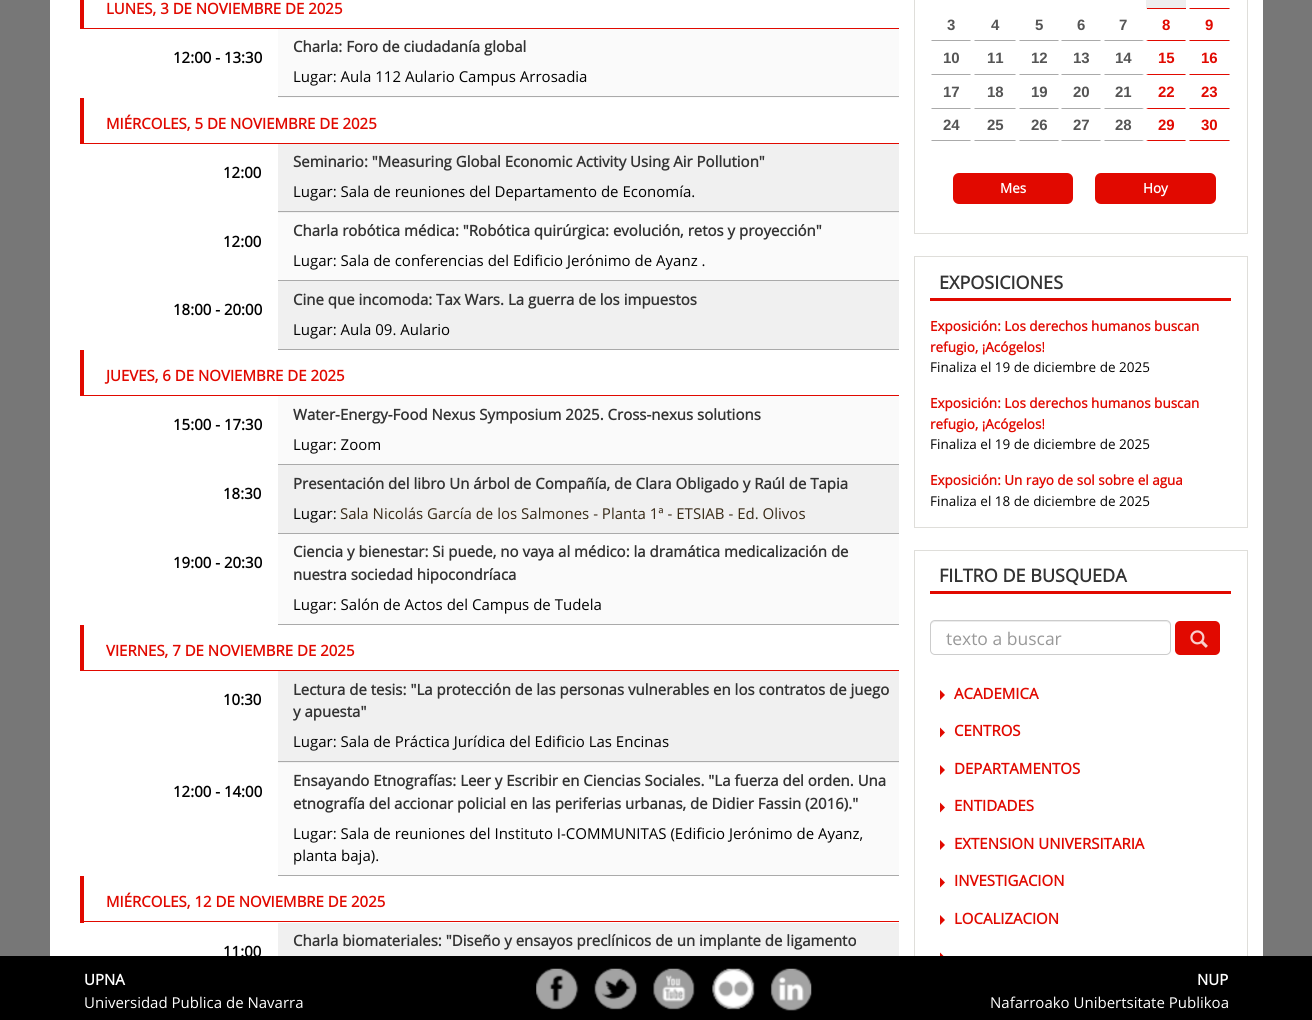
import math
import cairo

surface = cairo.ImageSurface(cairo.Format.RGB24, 1312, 1020)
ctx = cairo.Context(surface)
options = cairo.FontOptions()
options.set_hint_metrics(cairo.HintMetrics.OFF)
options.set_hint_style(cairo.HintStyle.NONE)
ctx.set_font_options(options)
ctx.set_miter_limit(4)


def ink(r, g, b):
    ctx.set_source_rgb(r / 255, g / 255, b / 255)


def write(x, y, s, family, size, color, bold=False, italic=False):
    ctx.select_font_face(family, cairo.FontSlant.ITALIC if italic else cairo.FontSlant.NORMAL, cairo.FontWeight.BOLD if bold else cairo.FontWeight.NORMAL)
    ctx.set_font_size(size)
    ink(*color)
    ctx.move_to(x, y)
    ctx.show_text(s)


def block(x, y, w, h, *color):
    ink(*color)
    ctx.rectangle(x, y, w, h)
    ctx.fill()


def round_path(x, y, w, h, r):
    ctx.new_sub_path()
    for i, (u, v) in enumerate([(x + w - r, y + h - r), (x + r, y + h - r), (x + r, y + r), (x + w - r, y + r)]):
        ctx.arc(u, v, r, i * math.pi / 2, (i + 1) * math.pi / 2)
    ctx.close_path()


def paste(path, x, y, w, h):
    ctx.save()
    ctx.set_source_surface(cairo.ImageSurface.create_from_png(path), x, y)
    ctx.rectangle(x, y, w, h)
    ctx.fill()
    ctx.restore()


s1 = dict(family="Open Sans", size=15, color=(225, 9, 0), bold=True)
s2 = dict(family="Open Sans", size=15, color=(0, 0, 0), bold=True)
s3 = dict(family="Open Sans", size=15, color=(51, 51, 51), bold=True)
s4 = dict(family="Open Sans", size=15, color=(0, 0, 0))
s5 = dict(family="Open Sans", size=15, color=(55, 41, 22))
s6 = dict(family="Liberation Sans", size=15, color=(85, 85, 85), bold=True)
s7 = dict(family="Liberation Sans", size=15, color=(225, 9, 0), bold=True)
s8 = dict(family="Open Sans", size=13.5, color=(255, 255, 255), bold=True)
s9 = dict(family="Open Sans", size=18, color=(51, 51, 51), bold=True)
s10 = dict(family="Open Sans", size=13.5, color=(225, 9, 0), bold=True)
s11 = dict(family="Open Sans", size=13.5, color=(0, 0, 0))
s12 = dict(family="Open Sans", size=17.5, color=(153, 153, 153))
s13 = dict(family="Open Sans", size=15, color=(255, 255, 255), bold=True)
s14 = dict(family="Open Sans", size=15, color=(255, 255, 255))

ink(119, 119, 119)
ctx.paint()
block(50, 0, 1213, 956, 255, 255, 255)
block(80, 28, 819, 1, 225, 9, 0)
block(80, 0, 4, 29, 225, 9, 0)
write(106, 14, "LUNES, 3 DE NOVIEMBRE DE 2025", **s1)
write(173, 63, "12:00 - 13:30", **s2)
block(278, 29, 621, 69, 250, 250, 250)
block(278, 96, 621, 1, 170, 170, 170)
write(293, 52, "Charla: Foro de ciudadanía global", **s3)
write(293, 82, "Lugar: Aula 112 Aulario Campus Arrosadia", **s4)
block(80, 143, 819, 1, 225, 9, 0)
block(80, 98, 4, 46, 225, 9, 0)
write(106, 129, "MIÉRCOLES, 5 DE NOVIEMBRE DE 2025", **s1)
write(223, 178, "12:00", **s2)
block(278, 144, 621, 69, 240, 240, 240)
block(278, 211, 621, 1, 170, 170, 170)
write(293, 167, "Seminario: \"Measuring Global Economic Activity Using Air Pollution\"", **s3)
write(293, 197, "Lugar: Sala de reuniones del Departamento de Economía.", **s4)
write(223, 247, "12:00", **s2)
block(278, 213, 621, 67, 250, 250, 250)
block(278, 280, 621, 1, 170, 170, 170)
write(293, 236, "Charla robótica médica: \"Robótica quirúrgica: evolución, retos y proyección\"", **s3)
write(293, 266, "Lugar: Sala de conferencias del Edificio Jerónimo de Ayanz .", **s4)
write(173, 315, "18:00 - 20:00", **s2)
block(278, 281, 621, 68, 240, 240, 240)
block(278, 349, 621, 1, 170, 170, 170)
write(293, 305, "Cine que incomoda: Tax Wars. La guerra de los impuestos", **s3)
write(293, 335, "Lugar: Aula 09. Aulario", **s4)
block(80, 395, 819, 1, 225, 9, 0)
block(80, 350, 4, 46, 225, 9, 0)
write(106, 381, "JUEVES, 6 DE NOVIEMBRE DE 2025", **s1)
write(173, 430, "15:00 - 17:30", **s2)
block(278, 396, 621, 68, 250, 250, 250)
block(278, 464, 621, 1, 170, 170, 170)
write(293, 420, "Water-Energy-Food Nexus Symposium 2025. Cross-nexus solutions", **s3)
write(293, 450, "Lugar: Zoom", **s4)
write(223, 499, "18:30", **s2)
block(278, 465, 621, 68, 240, 240, 240)
block(278, 533, 621, 1, 170, 170, 170)
write(293, 489, "Presentación del libro Un árbol de Compañía, de Clara Obligado y Raúl de Tapia", **s3)
write(293, 519, "Lugar:", **s4)
write(340, 519, "Sala Nicolás García de los Salmones - Planta 1ª - ETSIAB - Ed. Olivos", **s5)
write(173, 568, "19:00 - 20:30", **s2)
block(278, 534, 621, 90, 250, 250, 250)
block(278, 624, 621, 1, 170, 170, 170)
write(293, 557, "Ciencia y bienestar: Si puede, no vaya al médico: la dramática medicalización de", **s3)
write(293, 580, "nuestra sociedad hipocondríaca", **s3)
write(293, 610, "Lugar: Salón de Actos del Campus de Tudela", **s4)
block(80, 670, 819, 1, 225, 9, 0)
block(80, 625, 4, 46, 225, 9, 0)
write(106, 656, "VIERNES, 7 DE NOVIEMBRE DE 2025", **s1)
write(223, 705, "10:30", **s2)
block(278, 671, 621, 92, 240, 240, 240)
block(278, 761, 621, 1, 170, 170, 170)
write(293, 695, "Lectura de tesis: \"La protección de las personas vulnerables en los contratos de juego", **s3)
write(293, 717, "y apuesta\"", **s3)
write(293, 747, "Lugar: Sala de Práctica Jurídica del Edificio Las Encinas", **s4)
write(173, 797, "12:00 - 14:00", **s2)
block(278, 763, 621, 112, 250, 250, 250)
block(278, 875, 621, 1, 170, 170, 170)
write(293, 786, "Ensayando Etnografías: Leer y Escribir en Ciencias Sociales. \"La fuerza del orden. Una", **s3)
write(293, 809, "etnografía del accionar policial en las periferias urbanas, de Didier Fassin (2016).\"", **s3)
write(293, 839, "Lugar: Sala de reuniones del Instituto I-COMMUNITAS (Edificio Jerónimo de Ayanz,", **s4)
write(293, 861, "planta baja).", **s4)
block(80, 921, 819, 1, 225, 9, 0)
block(80, 876, 4, 47, 225, 9, 0)
write(106, 907, "MIÉRCOLES, 12 DE NOVIEMBRE DE 2025", **s1)
block(278, 923, 621, 33, 240, 240, 240)
write(293, 946, "Charla biomateriales: \"Diseño y ensayos preclínicos de un implante de ligamento", **s3)
write(223, 957, "11:00", **s2)
ctx.rectangle(914.5, -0.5, 333, 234)
ink(223, 222, 218)
ctx.set_line_width(1)
ctx.stroke()
block(1147, 0, 39, 8, 238, 238, 238)
block(1146, 8, 40, 1, 225, 9, 0)
block(1146, 0, 1, 9, 238, 238, 238)
ink(225, 9, 0)
ctx.new_path()
ctx.move_to(1230, 9)
ctx.line_to(1189, 9)
ctx.line_to(1190, 8)
ctx.line_to(1229, 8)
ctx.close_path()
ctx.fill()
ink(170, 170, 170)
ctx.new_path()
ctx.move_to(971, 41)
ctx.line_to(931, 41)
ctx.line_to(932, 40)
ctx.line_to(970, 40)
ctx.close_path()
ctx.fill()
write(947, 30, "3", **s6)
ink(170, 170, 170)
ctx.new_path()
ctx.move_to(1016, 41)
ctx.line_to(974, 41)
ctx.line_to(975, 40)
ctx.line_to(1015, 40)
ctx.close_path()
ctx.fill()
write(991, 30, "4", **s6)
ink(170, 170, 170)
ctx.new_path()
ctx.move_to(1059, 41)
ctx.line_to(1019, 41)
ctx.line_to(1020, 40)
ctx.line_to(1058, 40)
ctx.close_path()
ctx.fill()
write(1035, 30, "5", **s6)
ink(170, 170, 170)
ctx.new_path()
ctx.move_to(1101, 41)
ctx.line_to(1061, 41)
ctx.line_to(1062, 40)
ctx.line_to(1100, 40)
ctx.close_path()
ctx.fill()
write(1077, 30, "6", **s6)
ink(170, 170, 170)
ctx.new_path()
ctx.move_to(1144, 41)
ctx.line_to(1104, 41)
ctx.line_to(1105, 40)
ctx.line_to(1142, 40)
ctx.close_path()
ctx.fill()
write(1119, 30, "7", **s6)
ink(225, 9, 0)
ctx.new_path()
ctx.move_to(1186, 41)
ctx.line_to(1146, 41)
ctx.line_to(1148, 40)
ctx.line_to(1185, 40)
ctx.close_path()
ctx.fill()
write(1162, 30, "8", **s7)
ctx.new_path()
ctx.move_to(1230, 41)
ctx.line_to(1189, 41)
ctx.line_to(1190, 40)
ctx.line_to(1229, 40)
ctx.close_path()
ctx.fill()
write(1205, 30, "9", **s7)
ink(170, 170, 170)
ctx.new_path()
ctx.move_to(971, 75)
ctx.line_to(931, 75)
ctx.line_to(932, 74)
ctx.line_to(970, 74)
ctx.close_path()
ctx.fill()
write(943, 63, "10", **s6)
ink(170, 170, 170)
ctx.new_path()
ctx.move_to(1016, 75)
ctx.line_to(974, 75)
ctx.line_to(975, 74)
ctx.line_to(1015, 74)
ctx.close_path()
ctx.fill()
write(987, 63, "11", **s6)
ink(170, 170, 170)
ctx.new_path()
ctx.move_to(1059, 75)
ctx.line_to(1019, 75)
ctx.line_to(1020, 74)
ctx.line_to(1058, 74)
ctx.close_path()
ctx.fill()
write(1031, 63, "12", **s6)
ink(170, 170, 170)
ctx.new_path()
ctx.move_to(1101, 75)
ctx.line_to(1061, 75)
ctx.line_to(1062, 74)
ctx.line_to(1100, 74)
ctx.close_path()
ctx.fill()
write(1073, 63, "13", **s6)
ink(170, 170, 170)
ctx.new_path()
ctx.move_to(1144, 75)
ctx.line_to(1104, 75)
ctx.line_to(1105, 74)
ctx.line_to(1142, 74)
ctx.close_path()
ctx.fill()
write(1115, 63, "14", **s6)
ink(225, 9, 0)
ctx.new_path()
ctx.move_to(1186, 75)
ctx.line_to(1146, 75)
ctx.line_to(1148, 74)
ctx.line_to(1185, 74)
ctx.close_path()
ctx.fill()
write(1158, 63, "15", **s7)
ctx.new_path()
ctx.move_to(1230, 75)
ctx.line_to(1189, 75)
ctx.line_to(1190, 74)
ctx.line_to(1229, 74)
ctx.close_path()
ctx.fill()
write(1201, 63, "16", **s7)
ink(170, 170, 170)
ctx.new_path()
ctx.move_to(971, 109)
ctx.line_to(931, 109)
ctx.line_to(932, 108)
ctx.line_to(970, 108)
ctx.close_path()
ctx.fill()
write(943, 97, "17", **s6)
ink(170, 170, 170)
ctx.new_path()
ctx.move_to(1016, 109)
ctx.line_to(974, 109)
ctx.line_to(975, 108)
ctx.line_to(1015, 108)
ctx.close_path()
ctx.fill()
write(987, 97, "18", **s6)
ink(170, 170, 170)
ctx.new_path()
ctx.move_to(1059, 109)
ctx.line_to(1019, 109)
ctx.line_to(1020, 108)
ctx.line_to(1058, 108)
ctx.close_path()
ctx.fill()
write(1031, 97, "19", **s6)
ink(170, 170, 170)
ctx.new_path()
ctx.move_to(1101, 109)
ctx.line_to(1061, 109)
ctx.line_to(1062, 108)
ctx.line_to(1100, 108)
ctx.close_path()
ctx.fill()
write(1073, 97, "20", **s6)
ink(170, 170, 170)
ctx.new_path()
ctx.move_to(1144, 109)
ctx.line_to(1104, 109)
ctx.line_to(1105, 108)
ctx.line_to(1142, 108)
ctx.close_path()
ctx.fill()
write(1115, 97, "21", **s6)
ink(225, 9, 0)
ctx.new_path()
ctx.move_to(1186, 109)
ctx.line_to(1146, 109)
ctx.line_to(1148, 108)
ctx.line_to(1185, 108)
ctx.close_path()
ctx.fill()
write(1158, 97, "22", **s7)
ctx.new_path()
ctx.move_to(1230, 109)
ctx.line_to(1189, 109)
ctx.line_to(1190, 108)
ctx.line_to(1229, 108)
ctx.close_path()
ctx.fill()
write(1201, 97, "23", **s7)
ink(170, 170, 170)
ctx.new_path()
ctx.move_to(971, 141)
ctx.line_to(931, 141)
ctx.line_to(932, 140)
ctx.line_to(970, 140)
ctx.close_path()
ctx.fill()
write(943, 130, "24", **s6)
ink(170, 170, 170)
ctx.new_path()
ctx.move_to(1016, 141)
ctx.line_to(974, 141)
ctx.line_to(975, 140)
ctx.line_to(1015, 140)
ctx.close_path()
ctx.fill()
write(987, 130, "25", **s6)
ink(170, 170, 170)
ctx.new_path()
ctx.move_to(1059, 141)
ctx.line_to(1019, 141)
ctx.line_to(1020, 140)
ctx.line_to(1058, 140)
ctx.close_path()
ctx.fill()
write(1031, 130, "26", **s6)
ink(170, 170, 170)
ctx.new_path()
ctx.move_to(1101, 141)
ctx.line_to(1061, 141)
ctx.line_to(1062, 140)
ctx.line_to(1100, 140)
ctx.close_path()
ctx.fill()
write(1073, 130, "27", **s6)
ink(170, 170, 170)
ctx.new_path()
ctx.move_to(1144, 141)
ctx.line_to(1104, 141)
ctx.line_to(1105, 140)
ctx.line_to(1142, 140)
ctx.close_path()
ctx.fill()
write(1115, 130, "28", **s6)
ink(225, 9, 0)
ctx.new_path()
ctx.move_to(1186, 141)
ctx.line_to(1146, 141)
ctx.line_to(1148, 140)
ctx.line_to(1185, 140)
ctx.close_path()
ctx.fill()
write(1158, 130, "29", **s7)
ctx.new_path()
ctx.move_to(1230, 141)
ctx.line_to(1189, 141)
ctx.line_to(1190, 140)
ctx.line_to(1229, 140)
ctx.close_path()
ctx.fill()
write(1201, 130, "30", **s7)
round_path(953, 173, 120, 31, 6)
ctx.fill()
write(1000, 193, "Mes", **s8)
ink(225, 9, 0)
round_path(1095, 173, 121, 31, 6)
ctx.fill()
write(1143, 193, "Hoy", **s8)
ctx.rectangle(914.5, 256.5, 333, 271)
ink(223, 222, 218)
ctx.stroke()
block(930, 298, 301, 3, 225, 9, 0)
write(939, 289, "EXPOSICIONES", **s9)
write(930, 331, "Exposición: Los derechos humanos buscan", **s10)
write(930, 352, "refugio, ¡Acógelos!", **s10)
write(930, 372, "Finaliza el 19 de diciembre de 2025", **s11)
write(930, 408, "Exposición: Los derechos humanos buscan", **s10)
write(930, 429, "refugio, ¡Acógelos!", **s10)
write(930, 449, "Finaliza el 19 de diciembre de 2025", **s11)
write(930, 485, "Exposición: Un rayo de sol sobre el agua", **s10)
write(930, 506, "Finaliza el 18 de diciembre de 2025", **s11)
ctx.rectangle(914.5, 550.5, 333, 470)
ink(223, 222, 218)
ctx.stroke()
block(930, 591, 301, 3, 225, 9, 0)
write(939, 582, "FILTRO DE BUSQUEDA", **s9)
ink(236, 236, 236)
ctx.new_path()
ctx.move_to(935, 622)
ctx.line_to(1166, 622)
ctx.curve_to(1168, 622, 1170, 624, 1170, 626)
ctx.curve_to(1170, 623, 1169, 621, 1166, 621)
ctx.line_to(935, 621)
ctx.curve_to(932, 621, 931, 623, 931, 626)
ctx.curve_to(931, 624, 933, 622, 935, 622)
ctx.close_path()
ctx.fill()
round_path(930.5, 620.5, 240, 34, 4.5)
ink(204, 204, 204)
ctx.stroke()
write(946, 645, "texto a buscar", **s12)
ink(225, 9, 0)
round_path(1175, 621, 45, 34, 5)
ctx.fill()
paste("pic1.png", 1190, 630, 18, 18)
ctx.new_path()
ctx.move_to(940, 700)
ctx.line_to(940, 690)
ctx.line_to(945, 695)
ctx.close_path()
ctx.fill()
write(954, 699, "ACADEMICA", **s1)
ctx.new_path()
ctx.move_to(940, 737.5)
ctx.line_to(940, 727.5)
ctx.line_to(945, 732.5)
ctx.close_path()
ctx.fill()
write(954, 736, "CENTROS", **s1)
ctx.new_path()
ctx.move_to(940, 775)
ctx.line_to(940, 765)
ctx.line_to(945, 770)
ctx.close_path()
ctx.fill()
write(954, 774, "DEPARTAMENTOS", **s1)
ctx.new_path()
ctx.move_to(940, 812.5)
ctx.line_to(940, 802.5)
ctx.line_to(945, 807.5)
ctx.close_path()
ctx.fill()
write(954, 811, "ENTIDADES", **s1)
ctx.new_path()
ctx.move_to(940, 850)
ctx.line_to(940, 840)
ctx.line_to(945, 845)
ctx.close_path()
ctx.fill()
write(954, 849, "EXTENSION UNIVERSITARIA", **s1)
ctx.new_path()
ctx.move_to(940, 887.5)
ctx.line_to(940, 877.5)
ctx.line_to(945, 882.5)
ctx.close_path()
ctx.fill()
write(954, 886, "INVESTIGACION", **s1)
ctx.new_path()
ctx.move_to(940, 925)
ctx.line_to(940, 915)
ctx.line_to(945, 920)
ctx.close_path()
ctx.fill()
write(954, 924, "LOCALIZACION", **s1)
ctx.new_path()
ctx.move_to(940, 962.5)
ctx.line_to(940, 952.5)
ctx.line_to(945, 957.5)
ctx.close_path()
ctx.fill()
block(0, 956, 1312, 64, 0, 0, 0)
write(84, 985, "UPNA", **s13)
write(84, 1008, "Universidad Publica de Navarra", **s14)
paste("pic2.png", 536, 968, 43, 42)
paste("pic3.png", 594, 968, 44, 42)
paste("pic4.png", 653, 968, 42, 42)
paste("pic5.png", 712, 968, 43, 42)
paste("pic6.png", 770, 968, 42, 43)
write(1197, 985, "NUP", **s13)
write(990, 1008, "Nafarroako Unibertsitate Publikoa", **s14)
surface.write_to_png("screenshot.png")
